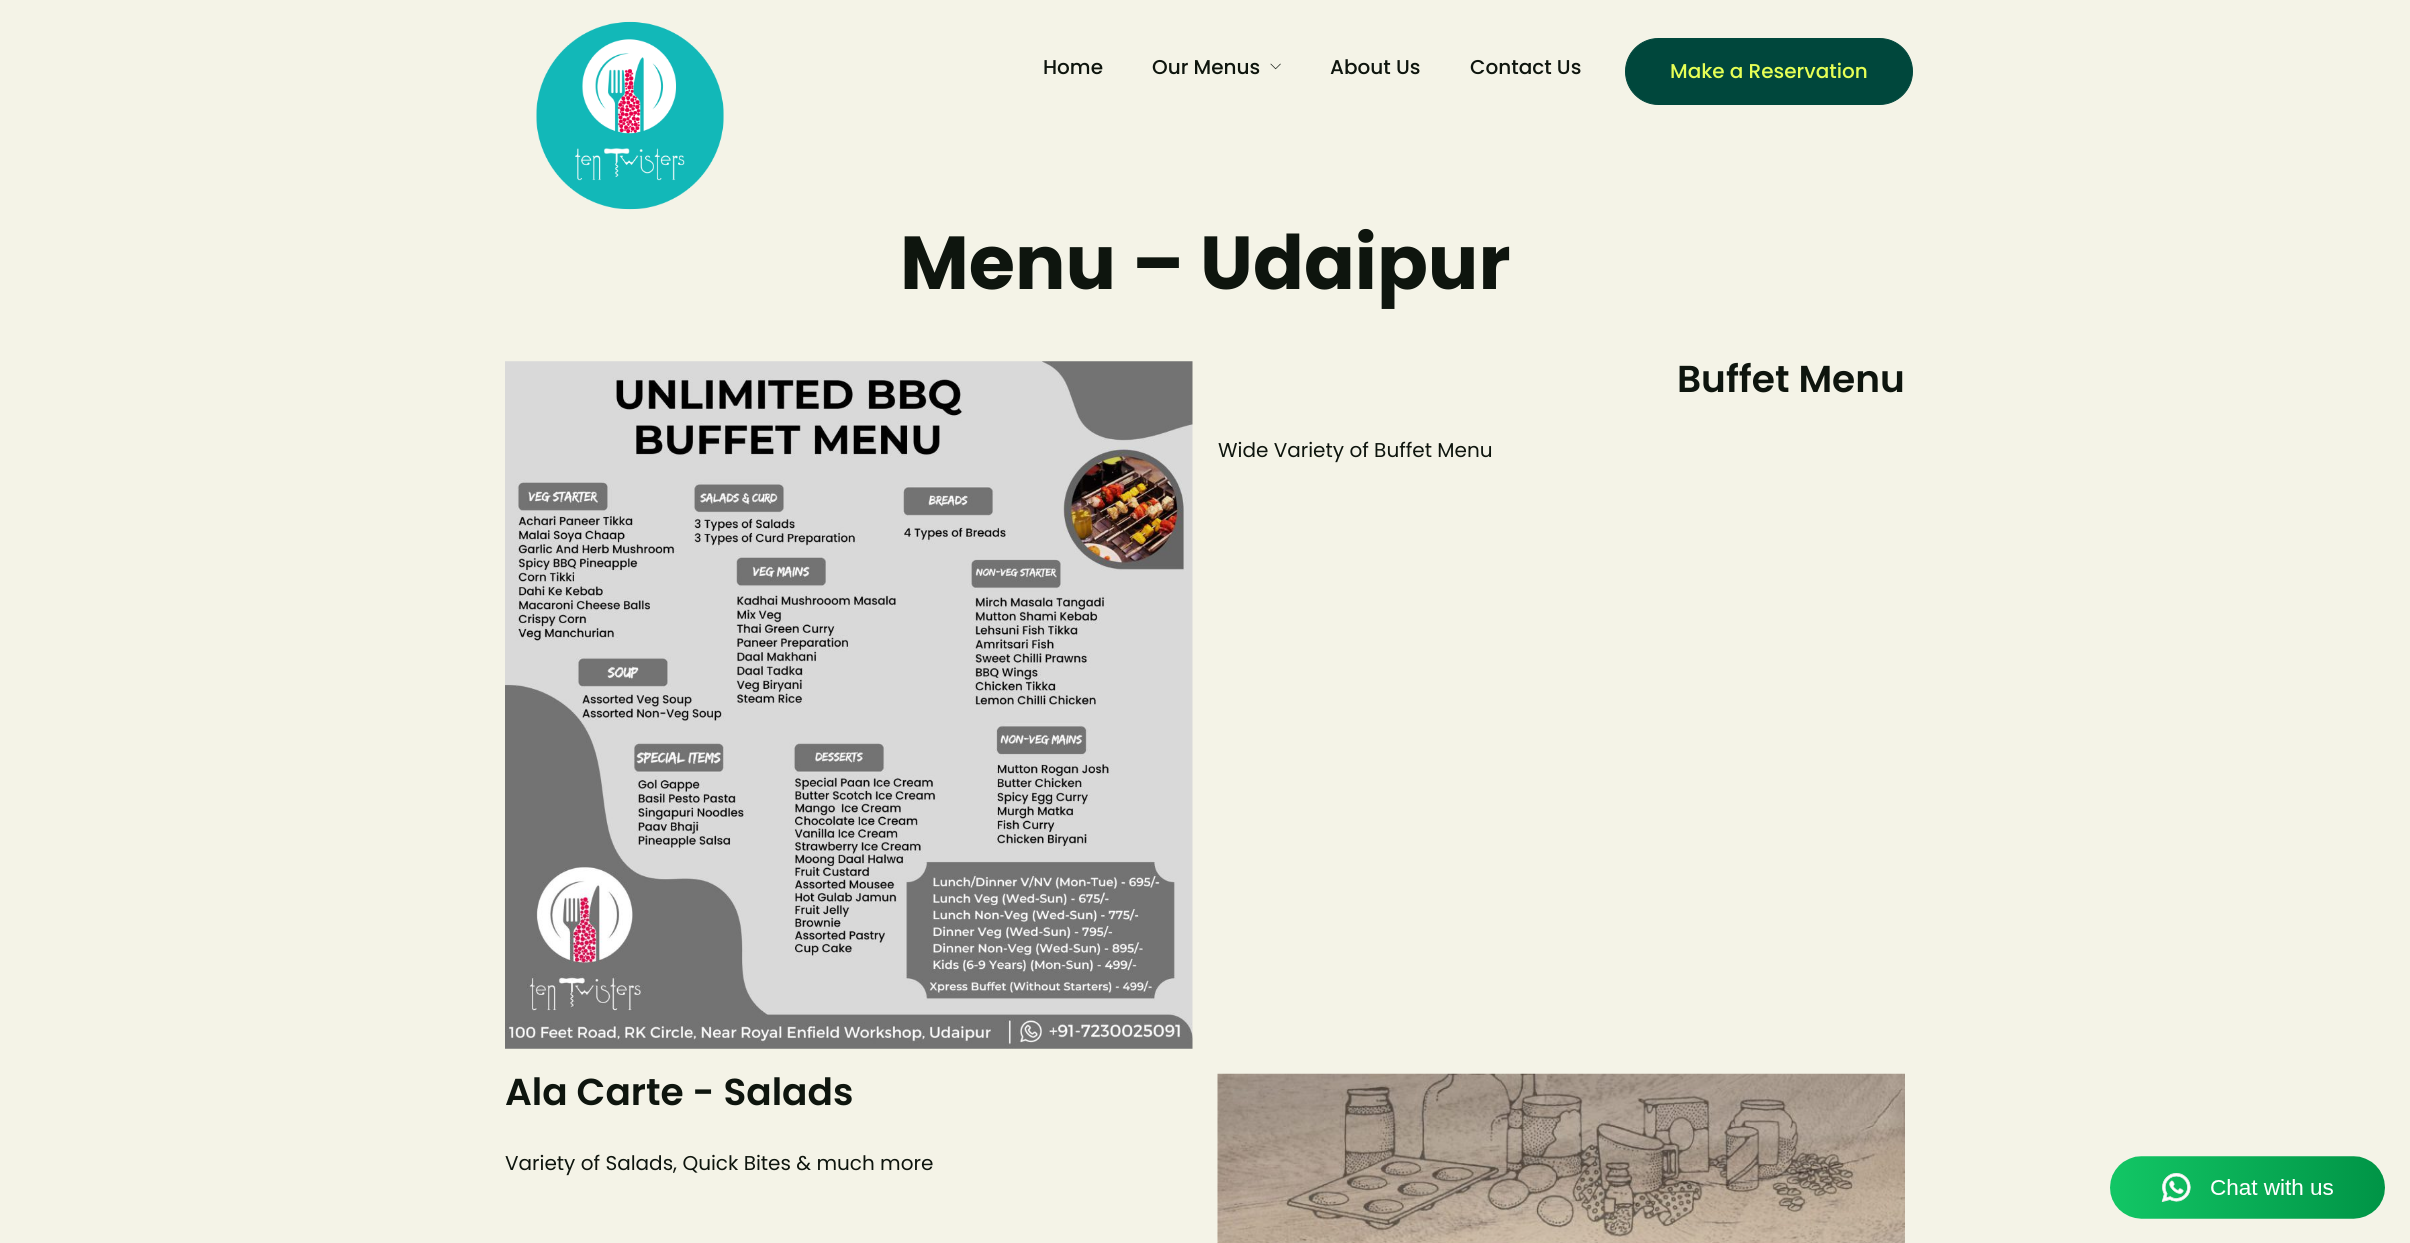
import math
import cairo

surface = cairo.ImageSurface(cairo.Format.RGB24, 2410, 1243)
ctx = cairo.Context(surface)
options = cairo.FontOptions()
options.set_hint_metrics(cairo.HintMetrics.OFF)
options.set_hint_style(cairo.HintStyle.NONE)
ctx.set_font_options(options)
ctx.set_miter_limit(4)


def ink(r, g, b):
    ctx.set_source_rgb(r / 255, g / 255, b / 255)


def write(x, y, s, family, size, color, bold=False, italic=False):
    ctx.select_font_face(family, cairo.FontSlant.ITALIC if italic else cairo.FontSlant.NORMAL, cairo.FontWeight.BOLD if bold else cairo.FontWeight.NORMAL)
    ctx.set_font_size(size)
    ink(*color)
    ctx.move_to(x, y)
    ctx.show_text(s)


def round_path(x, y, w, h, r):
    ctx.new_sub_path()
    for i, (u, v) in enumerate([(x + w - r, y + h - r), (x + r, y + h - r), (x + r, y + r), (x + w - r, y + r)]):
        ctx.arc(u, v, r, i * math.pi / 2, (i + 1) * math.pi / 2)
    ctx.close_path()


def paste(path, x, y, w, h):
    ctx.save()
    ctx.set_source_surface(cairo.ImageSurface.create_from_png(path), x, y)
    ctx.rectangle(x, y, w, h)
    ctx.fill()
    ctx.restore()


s1 = dict(family="Poppins Medium", size=20, color=(14, 21, 14))
s2 = dict(family="Poppins Medium", size=20, color=(230, 255, 85))
s3 = dict(family="Poppins", size=75, color=(14, 21, 14), bold=True)
s4 = dict(family="Poppins SemiBold", size=37.5, color=(14, 21, 14))
s5 = dict(family="Poppins", size=20, color=(14, 21, 14))

ink(244, 243, 231)
ctx.paint()
paste("pic1.png", 536, 21, 188, 189)
write(1043, 74, "Home", **s1)
write(1152, 74, "Our Menus", **s1)
paste("pic2.png", 1270, 63, 11, 7)
write(1330, 74, "About Us", **s1)
write(1470, 74, "Contact Us", **s1)
ink(0, 71, 60)
round_path(1625.5, 38.5, 287, 66, 33)
ctx.fill_preserve()
ctx.set_line_width(1)
ctx.stroke()
write(1670, 78, "Make a Reservation", **s2)
write(900, 289, "Menu – Udaipur", **s3)
paste("pic3.png", 505, 361, 688, 688)
write(1677, 392, "Buffet Menu", **s4)
write(1218, 457, "Wide Variety of Buffet Menu", **s5)
write(505, 1105, "Ala Carte - Salads", **s4)
write(505, 1170, "Variety of Salads, Quick Bites & much more", **s5)
paste("pic4.png", 1217, 1073, 688, 170)
paste("pic5.png", 2110, 1156, 275, 63)
surface.write_to_png("screenshot.png")
